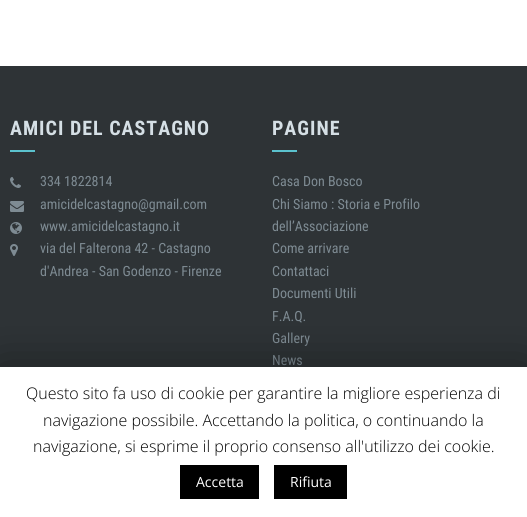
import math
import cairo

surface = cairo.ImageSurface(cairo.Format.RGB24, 527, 517)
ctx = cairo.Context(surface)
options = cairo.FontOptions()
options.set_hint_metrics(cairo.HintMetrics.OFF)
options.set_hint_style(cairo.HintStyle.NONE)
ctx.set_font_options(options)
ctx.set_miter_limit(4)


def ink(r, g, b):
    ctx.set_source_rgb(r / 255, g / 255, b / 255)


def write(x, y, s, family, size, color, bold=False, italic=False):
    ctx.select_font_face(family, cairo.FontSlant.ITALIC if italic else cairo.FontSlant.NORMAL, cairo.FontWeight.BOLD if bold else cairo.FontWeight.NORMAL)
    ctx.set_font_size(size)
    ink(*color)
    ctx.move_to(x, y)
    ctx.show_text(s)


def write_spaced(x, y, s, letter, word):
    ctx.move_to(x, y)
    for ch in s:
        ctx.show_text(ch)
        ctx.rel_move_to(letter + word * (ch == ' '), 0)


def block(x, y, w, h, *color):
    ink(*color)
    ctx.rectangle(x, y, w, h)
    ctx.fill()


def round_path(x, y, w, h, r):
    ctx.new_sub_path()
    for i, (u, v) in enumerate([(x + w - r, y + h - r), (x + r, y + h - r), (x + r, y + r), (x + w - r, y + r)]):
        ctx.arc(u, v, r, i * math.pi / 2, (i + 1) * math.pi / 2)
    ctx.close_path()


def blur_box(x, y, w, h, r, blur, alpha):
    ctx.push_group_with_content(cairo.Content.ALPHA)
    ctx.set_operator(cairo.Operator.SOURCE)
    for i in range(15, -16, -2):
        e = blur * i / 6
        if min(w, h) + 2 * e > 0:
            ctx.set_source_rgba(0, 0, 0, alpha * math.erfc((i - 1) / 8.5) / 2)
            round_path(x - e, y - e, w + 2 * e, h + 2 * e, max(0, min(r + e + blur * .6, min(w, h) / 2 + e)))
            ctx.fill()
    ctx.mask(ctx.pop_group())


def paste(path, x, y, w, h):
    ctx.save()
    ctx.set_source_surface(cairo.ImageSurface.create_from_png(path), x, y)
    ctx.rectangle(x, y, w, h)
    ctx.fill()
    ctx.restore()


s1 = dict(family="Roboto Condensed", size=14, color=(126, 139, 147))
s2 = dict(family="Open Sans Light", size=16, color=(0, 0, 0))
s3 = dict(family="Open Sans", size=14, color=(255, 255, 255))

ink(255, 255, 255)
ctx.paint()
block(0, 66, 527, 301, 46, 51, 54)
ctx.select_font_face("Roboto Condensed", cairo.FontSlant.NORMAL, cairo.FontWeight.BOLD)
ctx.set_font_size(20)
ink(213, 223, 229)
write_spaced(10, 135, "AMICI DEL CASTAGNO", 1, 0)
block(10, 150, 25, 2, 91, 194, 206)
paste("pic1.png", 10, 177, 11, 11)
write(40, 186, "334 1822814", **s1)
paste("pic2.png", 10, 201, 14, 11)
write(40, 209, "amicidelcastagno@gmail.com", **s1)
paste("pic3.png", 10, 222, 12, 12)
write(40, 231, "www.amicidelcastagno.it", **s1)
paste("pic4.png", 10, 244, 8, 12)
write(40, 253, "via del Falterona 42 - Castagno", **s1)
write(40, 276, "d'Andrea - San Godenzo - Firenze", **s1)
ctx.select_font_face("Roboto Condensed", cairo.FontSlant.NORMAL, cairo.FontWeight.BOLD)
ctx.set_font_size(20)
ink(213, 223, 229)
write_spaced(272, 135, "PAGINE", 1, 0)
block(272, 150, 25, 2, 91, 194, 206)
write(272, 186, "Casa Don Bosco", **s1)
write(272, 209, "Chi Siamo : Storia e Profilo", **s1)
write(272, 231, "dell’Associazione", **s1)
write(272, 253, "Come arrivare", **s1)
write(272, 276, "Contattaci", **s1)
write(272, 298, "Documenti Utili", **s1)
write(272, 321, "F.A.Q.", **s1)
write(272, 343, "Gallery", **s1)
write(272, 365, "News", **s1)
ink(0, 0, 0)
blur_box(0, 372, 527, 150, 0, 25, 0.5)
block(0, 367, 527, 150, 255, 255, 255)
write(26, 399, "Questo sito fa uso di cookie per garantire la migliore esperienza di", **s2)
write(43, 426, "navigazione possibile. Accettando la politica, o continuando la", **s2)
write(33, 452, "navigazione, si esprime il proprio consenso all'utilizzo dei cookie.", **s2)
block(180, 465, 79, 34, 0, 0, 0)
write(196, 487, "Accetta", **s3)
block(274, 465, 73, 34, 0, 0, 0)
write(290, 487, "Rifiuta", **s3)
surface.write_to_png("screenshot.png")
